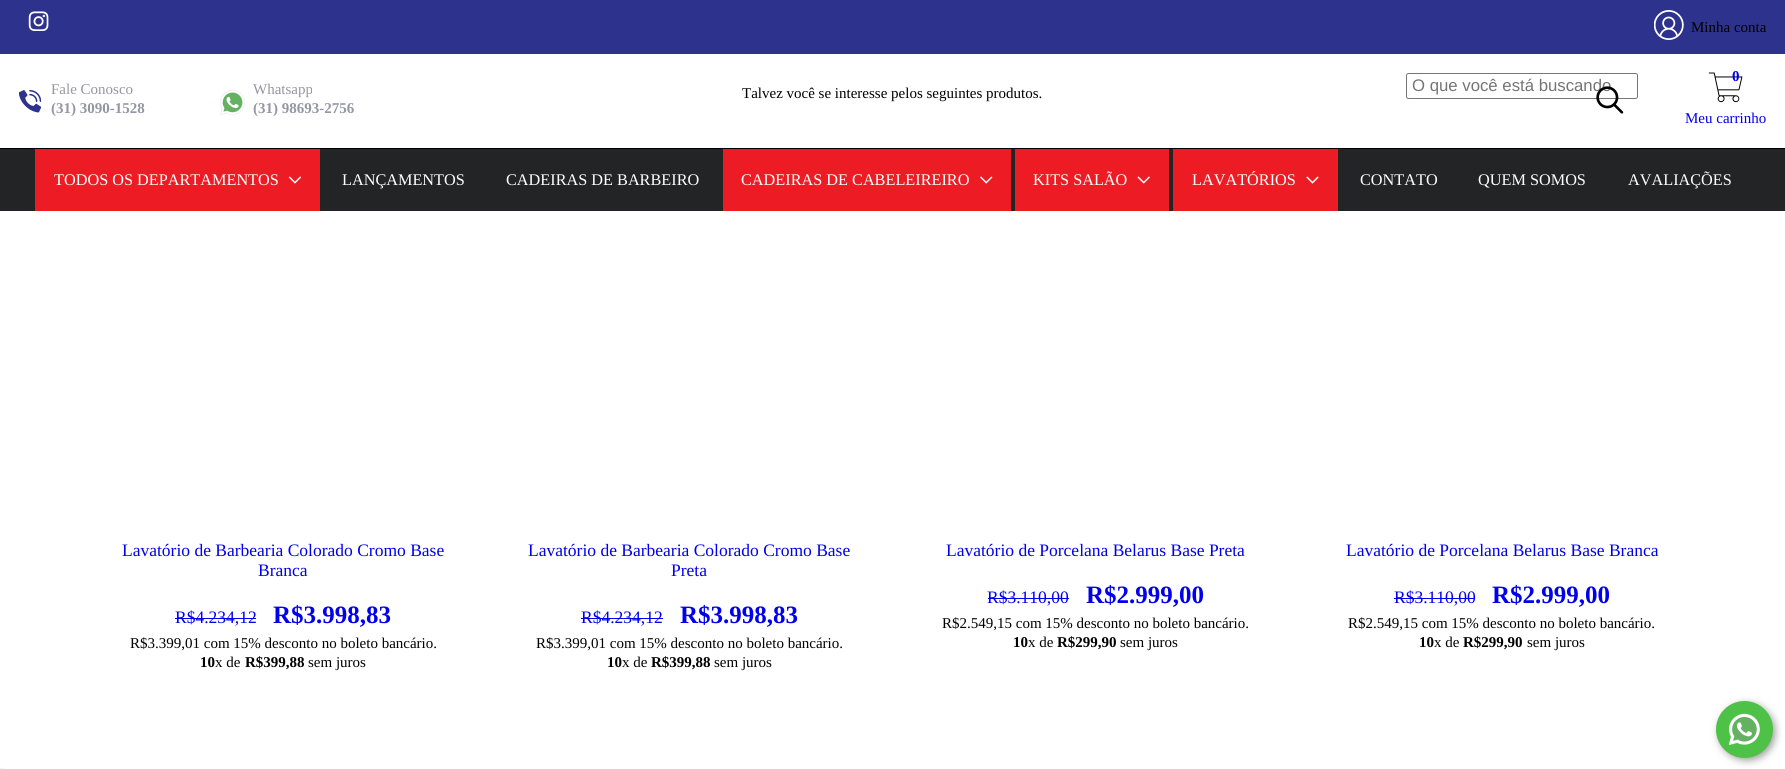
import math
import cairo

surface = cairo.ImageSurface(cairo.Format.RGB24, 1785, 769)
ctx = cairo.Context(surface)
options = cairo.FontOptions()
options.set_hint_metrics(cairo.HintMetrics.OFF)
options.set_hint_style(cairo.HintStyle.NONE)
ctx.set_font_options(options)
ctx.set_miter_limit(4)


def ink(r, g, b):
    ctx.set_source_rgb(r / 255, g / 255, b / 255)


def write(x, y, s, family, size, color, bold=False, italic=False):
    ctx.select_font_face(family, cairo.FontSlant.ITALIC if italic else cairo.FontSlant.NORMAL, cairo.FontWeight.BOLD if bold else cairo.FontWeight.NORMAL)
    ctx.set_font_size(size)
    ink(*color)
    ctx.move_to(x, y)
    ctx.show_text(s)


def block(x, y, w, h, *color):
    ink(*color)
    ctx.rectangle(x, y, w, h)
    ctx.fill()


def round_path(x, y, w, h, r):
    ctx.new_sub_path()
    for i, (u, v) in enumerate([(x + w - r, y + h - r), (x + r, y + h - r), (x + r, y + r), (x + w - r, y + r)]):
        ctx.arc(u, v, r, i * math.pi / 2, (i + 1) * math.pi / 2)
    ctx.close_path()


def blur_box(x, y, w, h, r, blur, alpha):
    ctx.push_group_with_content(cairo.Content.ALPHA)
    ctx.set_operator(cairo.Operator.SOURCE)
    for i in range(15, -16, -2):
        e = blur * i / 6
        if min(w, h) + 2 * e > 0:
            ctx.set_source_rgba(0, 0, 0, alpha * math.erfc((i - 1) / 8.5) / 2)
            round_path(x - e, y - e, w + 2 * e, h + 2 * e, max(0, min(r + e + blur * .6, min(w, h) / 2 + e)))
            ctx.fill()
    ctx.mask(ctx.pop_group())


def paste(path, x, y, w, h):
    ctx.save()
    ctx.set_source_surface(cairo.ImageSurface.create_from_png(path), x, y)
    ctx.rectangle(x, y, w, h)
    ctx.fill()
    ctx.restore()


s1 = dict(family="Liberation Serif", size=15, color=(0, 0, 0))
s2 = dict(family="Liberation Serif", size=15, color=(150, 150, 162))
s3 = dict(family="Liberation Serif", size=15, color=(150, 150, 162), bold=True)
s4 = dict(family="Liberation Sans", size=16.75, color=(117, 117, 117))
s5 = dict(family="Liberation Serif", size=15, color=(0, 0, 238), bold=True)
s6 = dict(family="Liberation Serif", size=15, color=(0, 0, 238))
s7 = dict(family="Liberation Serif", size=16.25, color=(255, 255, 255))
s8 = dict(family="Liberation Serif", size=17.5, color=(0, 0, 238))
s9 = dict(family="Liberation Serif", size=25, color=(0, 0, 238), bold=True)
s10 = dict(family="Liberation Serif", size=15, color=(0, 0, 0), bold=True)

ink(255, 255, 255)
ctx.paint()
block(0, 0, 1785, 54, 45, 51, 141)
paste("pic1.png", 28, 11, 21, 20)
paste("pic2.png", 1654, 10, 30, 30)
write(1691, 32, "Minha conta", **s1)
paste("pic3.png", 19, 90, 22, 23)
write(51, 94, "Fale Conosco", **s2)
write(51, 113, "(31) 3090-1528", **s3)
paste("pic4.png", 220, 90, 25, 25)
write(253, 94, "Whatsapp", **s2)
write(253, 113, "(31) 98693-2756", **s3)
round_path(1406.5, 73.5, 231, 25, 2)
ink(118, 118, 118)
ctx.set_line_width(1)
ctx.stroke()
write(1412, 91, "O que você está buscando", **s4)
paste("pic5.png", 1596, 86, 28, 28)
paste("pic6.png", 1708, 72, 35, 31)
write(1732, 81, "0", **s5)
write(1685, 123, "Meu carrinho", **s6)
block(0, 149, 1785, 62, 35, 36, 37)
block(0, 148, 1785, 1, 0, 0, 0)
block(35, 149, 285, 62, 237, 28, 36)
write(54, 185, "TODOS OS DEPARTAMENTOS", **s7)
paste("pic7.png", 288, 176, 14, 8)
write(342, 185, "LANÇAMENTOS", **s7)
write(506, 185, "CADEIRAS DE BARBEIRO", **s7)
block(723, 149, 288, 62, 237, 28, 36)
write(741, 185, "CADEIRAS DE CABELEIREIRO", **s7)
paste("pic8.png", 980, 176, 13, 8)
block(1015, 149, 154, 62, 237, 28, 36)
write(1033, 185, "KITS SALÃO", **s7)
paste("pic9.png", 1137, 176, 13, 8)
block(1173, 149, 165, 62, 237, 28, 36)
write(1192, 185, "LAVATÓRIOS", **s7)
paste("pic10.png", 1306, 176, 13, 8)
write(1360, 185, "CONTATO", **s7)
write(1478, 185, "QUEM SOMOS", **s7)
write(1628, 185, "AVALIAÇÕES", **s7)
write(742, 98, "Talvez você se interesse pelos seguintes produtos.", **s1)
write(122, 556, "Lavatório de Barbearia Colorado Cromo Base", **s8)
write(258, 576, "Branca", **s8)
write(175, 623, "R$4.234,12", **s8)
block(175, 618, 81, 1, 0, 0, 238)
write(273, 623, "R$3.998,83", **s9)
write(130, 648, "R$3.399,01 com 15% desconto no boleto bancário.", **s1)
write(200, 667, "10", **s10)
write(215, 667, "x de", **s1)
write(245, 667, "R$399,88", **s10)
write(308, 667, "sem juros", **s1)
write(528, 556, "Lavatório de Barbearia Colorado Cromo Base", **s8)
write(671, 576, "Preta", **s8)
write(581, 623, "R$4.234,12", **s8)
block(581, 618, 82, 1, 0, 0, 238)
write(680, 623, "R$3.998,83", **s9)
write(536, 648, "R$3.399,01 com 15% desconto no boleto bancário.", **s1)
write(607, 667, "10", **s10)
write(622, 667, "x de", **s1)
write(651, 667, "R$399,88", **s10)
write(714, 667, "sem juros", **s1)
write(946, 556, "Lavatório de Porcelana Belarus Base Preta", **s8)
write(987, 603, "R$3.110,00", **s8)
block(988, 598, 81, 1, 0, 0, 238)
write(1086, 603, "R$2.999,00", **s9)
write(942, 628, "R$2.549,15 com 15% desconto no boleto bancário.", **s1)
write(1013, 647, "10", **s10)
write(1028, 647, "x de", **s1)
write(1057, 647, "R$299,90", **s10)
write(1120, 647, "sem juros", **s1)
write(1346, 556, "Lavatório de Porcelana Belarus Base Branca", **s8)
write(1394, 603, "R$3.110,00", **s8)
block(1394, 598, 81, 1, 0, 0, 238)
write(1492, 603, "R$2.999,00", **s9)
write(1348, 628, "R$2.549,15 com 15% desconto no boleto bancário.", **s1)
write(1419, 647, "10", **s10)
write(1434, 647, "x de", **s1)
write(1463, 647, "R$299,90", **s10)
write(1527, 647, "sem juros", **s1)
block(0, 768, 3, 1, 245, 245, 245)
ink(0, 0, 0)
blur_box(1719, 704, 56, 56, 28, 4, 0.4)
ink(77, 194, 71)
ctx.arc(1744.5, 729.5, 28.5, 0, 2 * math.pi)
ctx.fill()
paste("pic11.png", 1728, 713, 32, 32)
surface.write_to_png("screenshot.png")
